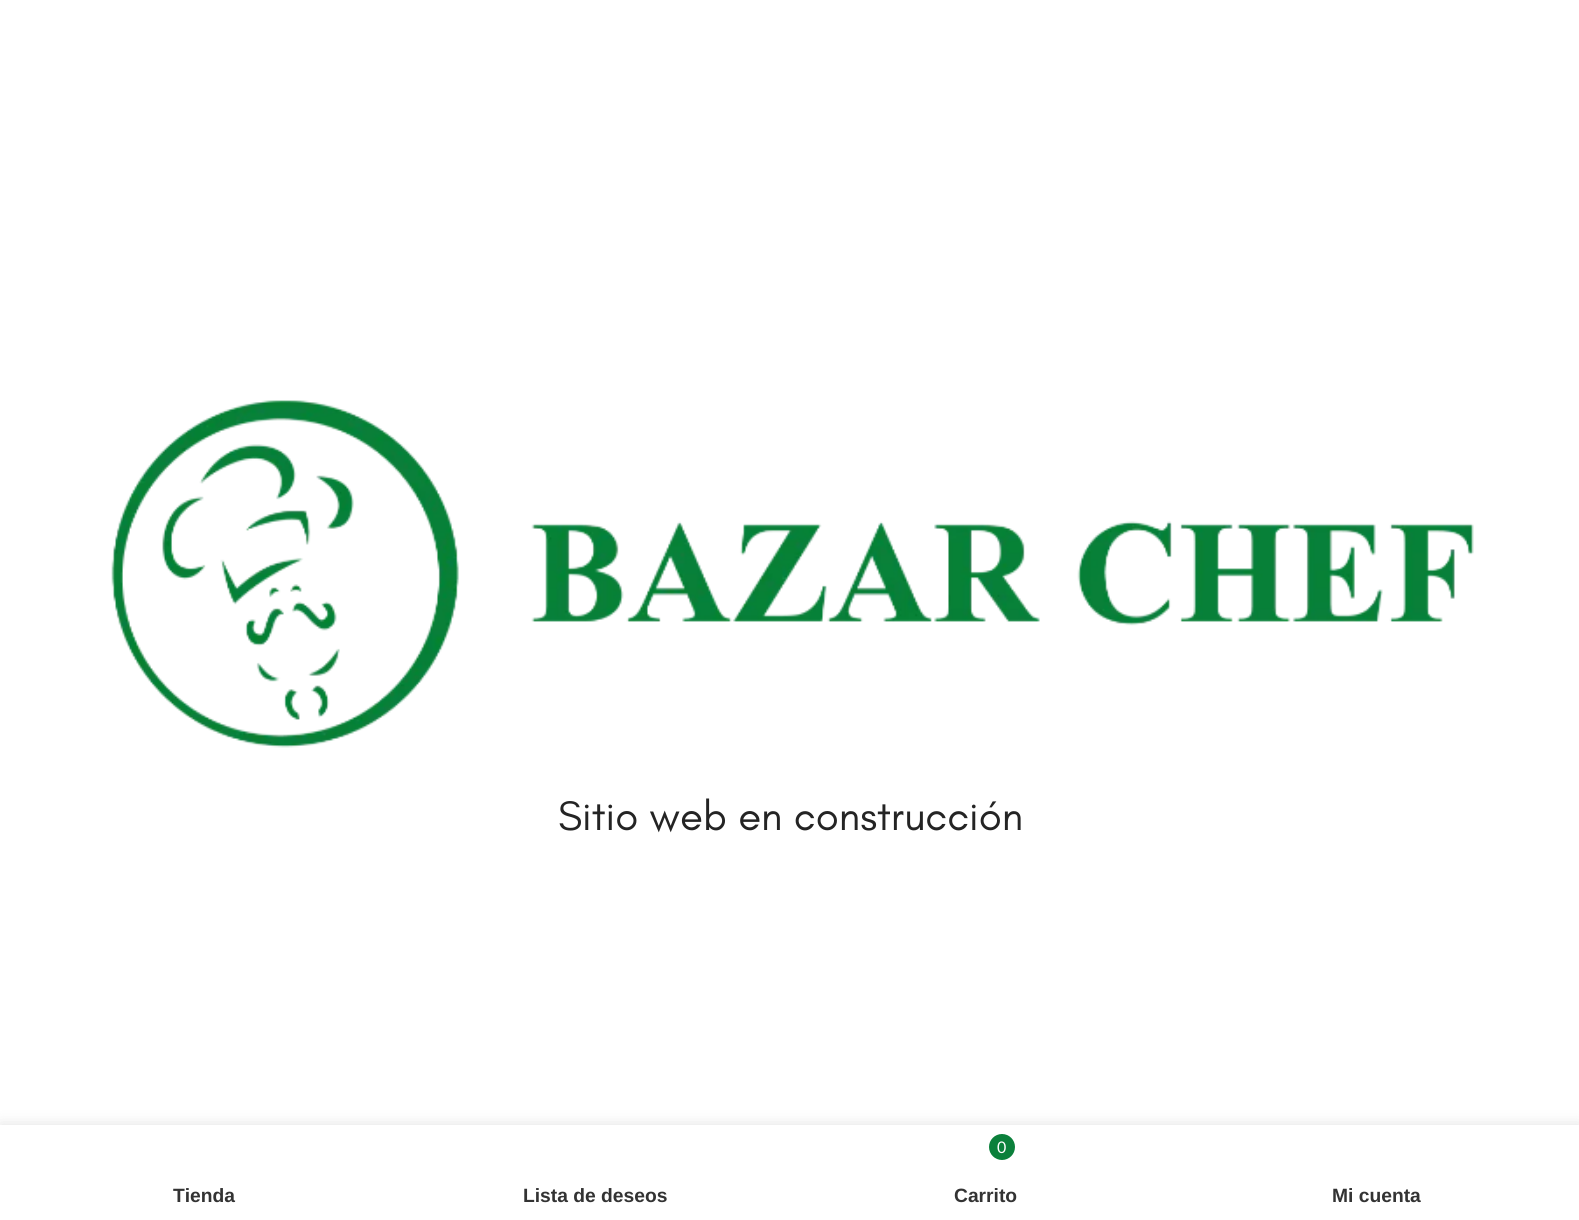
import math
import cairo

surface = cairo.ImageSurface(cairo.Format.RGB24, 1579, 1220)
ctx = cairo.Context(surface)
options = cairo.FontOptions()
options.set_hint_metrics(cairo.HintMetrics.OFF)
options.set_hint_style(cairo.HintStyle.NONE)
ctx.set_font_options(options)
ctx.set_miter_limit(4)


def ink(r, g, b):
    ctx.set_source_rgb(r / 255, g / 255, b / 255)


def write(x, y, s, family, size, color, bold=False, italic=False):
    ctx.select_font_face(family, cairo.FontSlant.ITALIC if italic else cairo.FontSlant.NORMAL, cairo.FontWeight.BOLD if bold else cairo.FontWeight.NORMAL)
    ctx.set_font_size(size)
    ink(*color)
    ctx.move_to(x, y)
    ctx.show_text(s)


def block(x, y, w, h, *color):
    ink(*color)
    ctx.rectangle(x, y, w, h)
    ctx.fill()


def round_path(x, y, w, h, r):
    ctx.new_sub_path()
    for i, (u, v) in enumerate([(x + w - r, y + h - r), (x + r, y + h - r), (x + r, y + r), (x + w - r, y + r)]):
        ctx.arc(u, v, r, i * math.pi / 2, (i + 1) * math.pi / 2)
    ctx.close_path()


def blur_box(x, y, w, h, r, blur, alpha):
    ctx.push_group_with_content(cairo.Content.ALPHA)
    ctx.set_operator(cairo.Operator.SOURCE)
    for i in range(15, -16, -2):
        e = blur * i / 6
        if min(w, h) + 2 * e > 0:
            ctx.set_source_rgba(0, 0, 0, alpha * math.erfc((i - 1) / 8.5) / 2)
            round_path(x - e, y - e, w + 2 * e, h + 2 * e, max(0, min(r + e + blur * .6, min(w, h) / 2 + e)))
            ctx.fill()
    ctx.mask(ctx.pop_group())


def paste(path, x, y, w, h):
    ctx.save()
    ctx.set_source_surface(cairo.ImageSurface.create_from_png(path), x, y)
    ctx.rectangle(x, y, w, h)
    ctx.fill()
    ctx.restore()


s1 = dict(family="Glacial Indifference", size=42, color=(36, 36, 36))
s2 = dict(family="Liberation Sans", size=19.25, color=(51, 51, 51), bold=True)
s3 = dict(family="Lato", size=16, color=(255, 255, 255))

ink(255, 255, 255)
ctx.paint()
paste("pic1.png", 111, 400, 1363, 348)
write(558, 830, "Sitio web en construcción", **s1)
ink(0, 0, 0)
blur_box(0, 1125, 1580, 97, 0, 8, 0.12)
block(0, 1125, 1579, 95, 255, 255, 255)
write(173, 1202, "Tienda", **s2)
write(523, 1202, "Lista de deseos", **s2)
ink(11, 128, 59)
ctx.new_path()
ctx.arc(1002, 1147, 13, 0, 2 * math.pi)
ctx.fill()
write(997, 1153, "0", **s3)
write(954, 1202, "Carrito", **s2)
write(1332, 1202, "Mi cuenta", **s2)
surface.write_to_png("screenshot.png")
